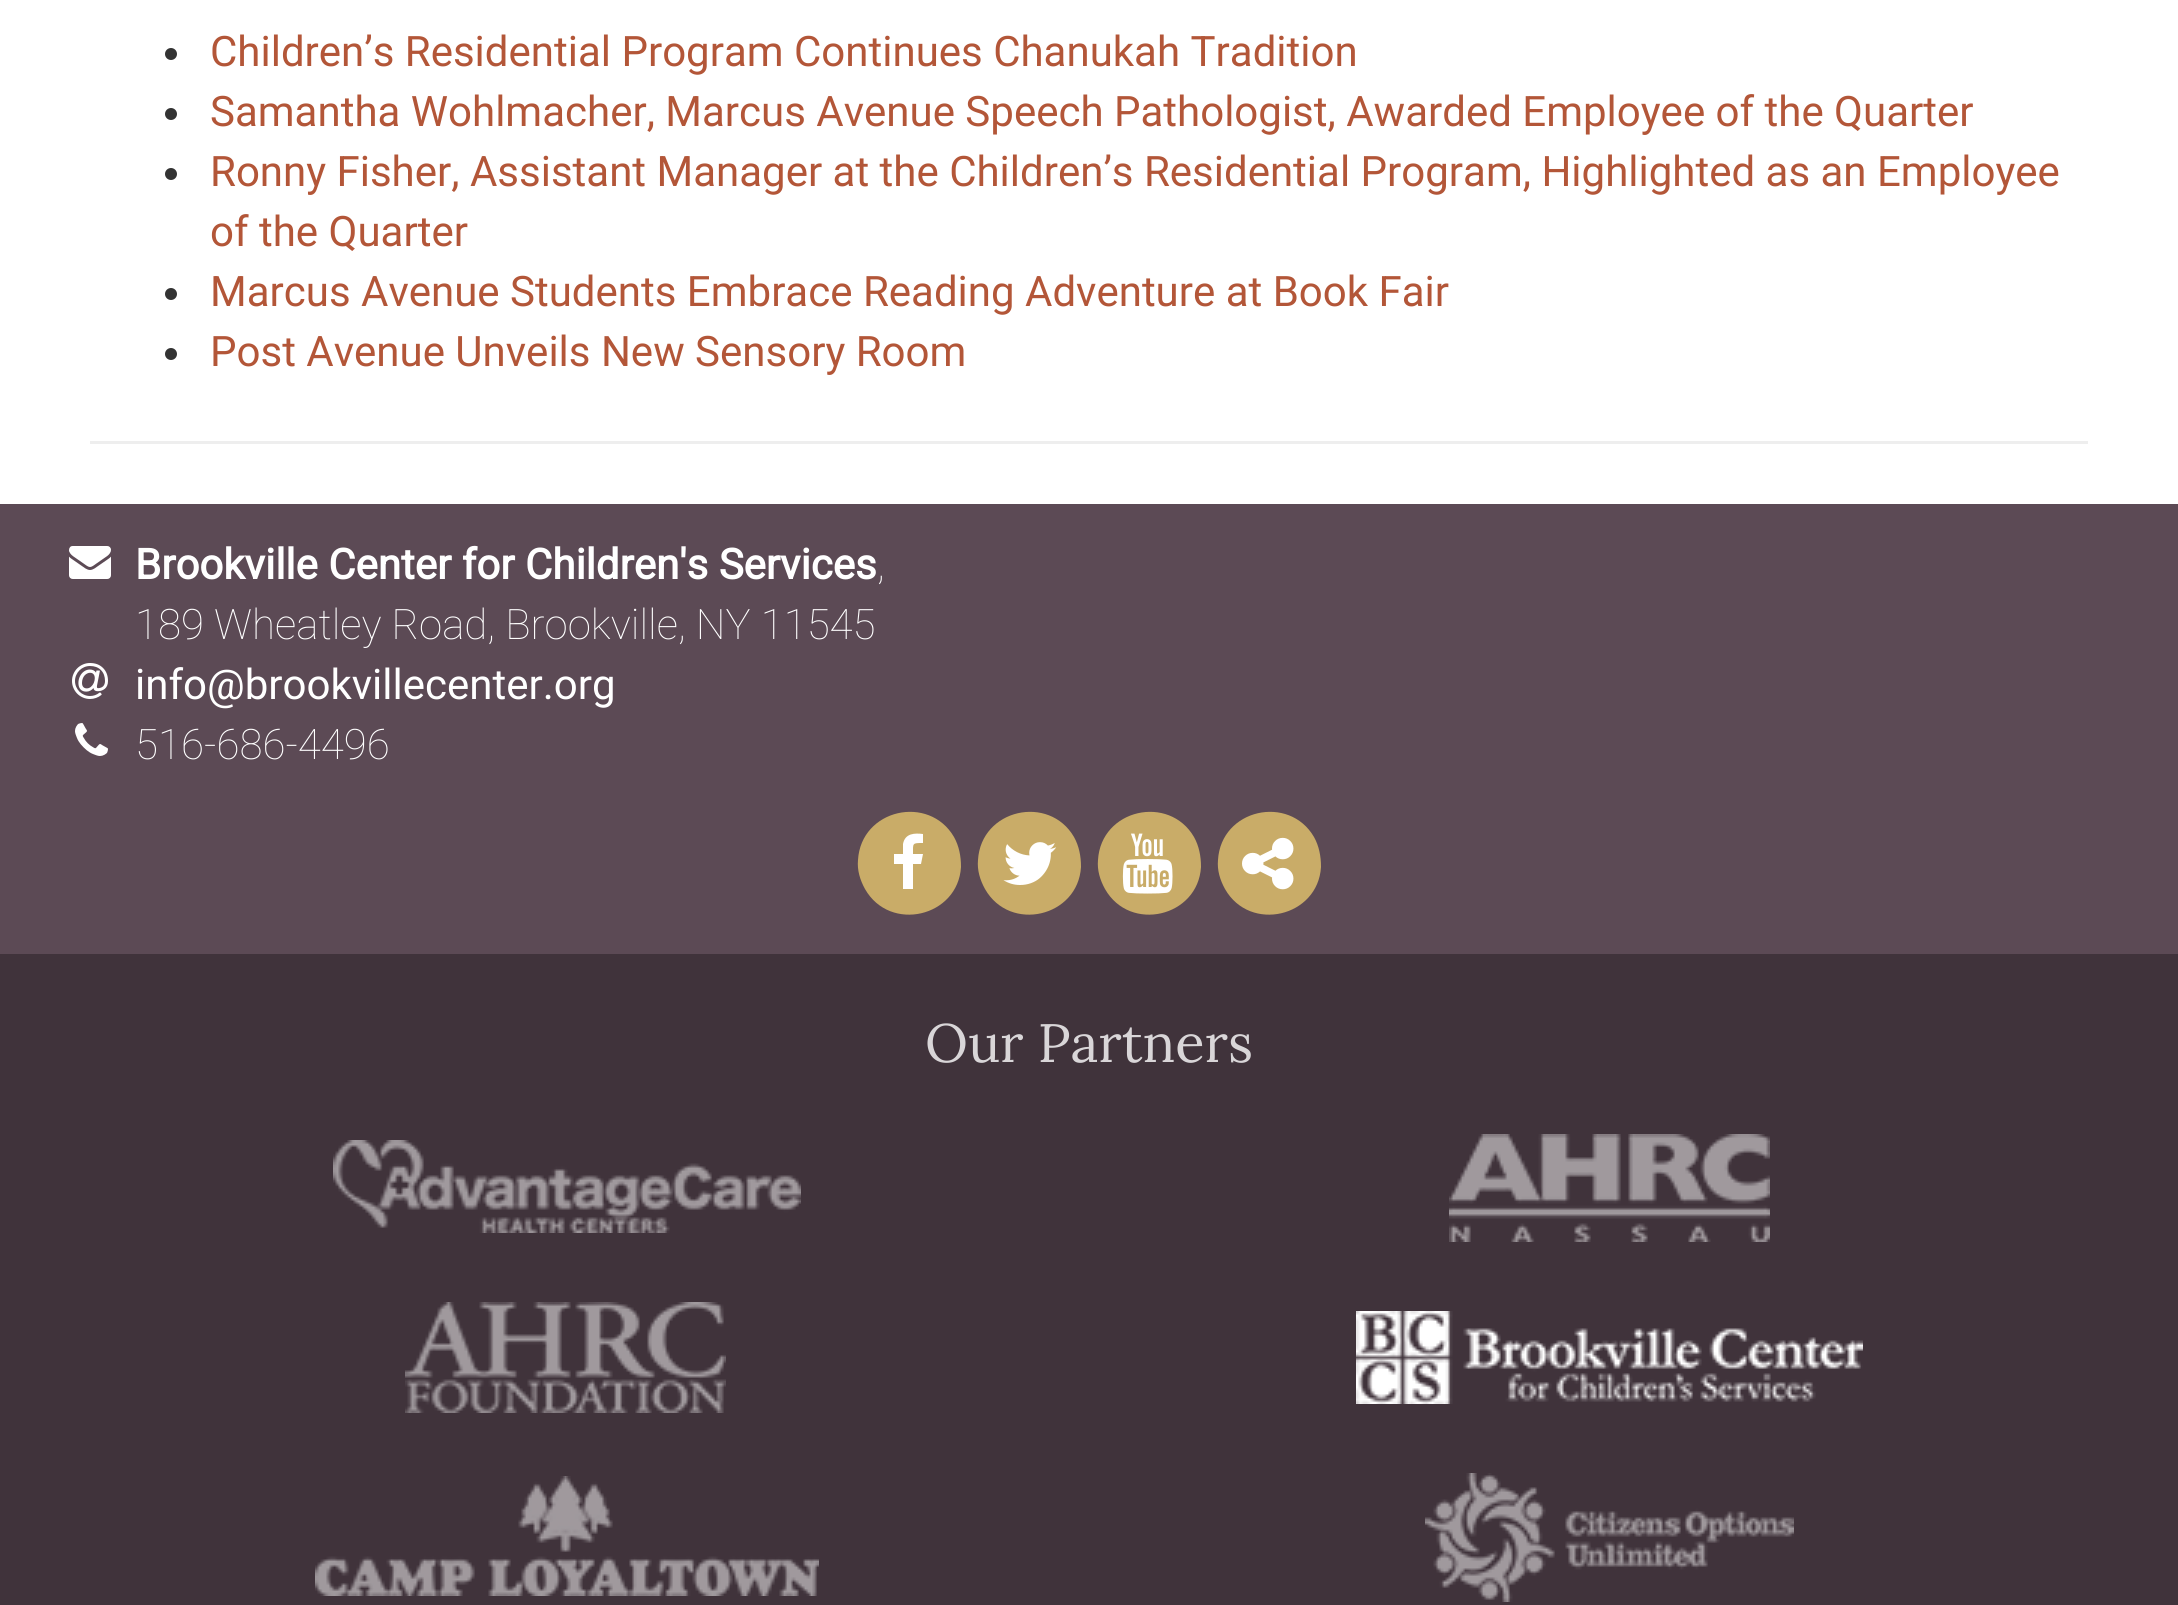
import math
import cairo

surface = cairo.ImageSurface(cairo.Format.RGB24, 2178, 1605)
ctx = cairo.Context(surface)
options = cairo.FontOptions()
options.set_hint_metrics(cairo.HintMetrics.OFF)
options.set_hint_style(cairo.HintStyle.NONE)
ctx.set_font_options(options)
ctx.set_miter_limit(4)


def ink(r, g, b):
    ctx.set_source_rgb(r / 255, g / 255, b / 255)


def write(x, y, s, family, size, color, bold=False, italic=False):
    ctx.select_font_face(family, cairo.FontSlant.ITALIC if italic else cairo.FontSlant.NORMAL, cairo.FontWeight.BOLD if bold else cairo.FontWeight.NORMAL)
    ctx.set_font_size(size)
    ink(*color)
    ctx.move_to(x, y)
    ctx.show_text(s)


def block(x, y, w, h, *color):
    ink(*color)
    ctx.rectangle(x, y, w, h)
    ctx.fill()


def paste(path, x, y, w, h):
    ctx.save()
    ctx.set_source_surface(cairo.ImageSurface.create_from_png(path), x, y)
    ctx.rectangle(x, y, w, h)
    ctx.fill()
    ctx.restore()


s1 = dict(family="Roboto", size=42, color=(179, 86, 56))
s2 = dict(family="Roboto", size=42, color=(255, 255, 255), bold=True)
s3 = dict(family="Roboto Thin", size=42, color=(255, 255, 255))
s4 = dict(family="Roboto", size=42, color=(255, 255, 255))
s5 = dict(family="Lora", size=54, color=(217, 214, 216))

ink(255, 255, 255)
ctx.paint()
ink(51, 51, 51)
ctx.arc(171, 54, 6, 0, 2 * math.pi)
ctx.fill()
write(210, 66, "Children’s Residential Program Continues Chanukah Tradition", **s1)
ink(51, 51, 51)
ctx.new_path()
ctx.arc(171, 114, 6, 0, 2 * math.pi)
ctx.fill()
write(210, 126, "Samantha Wohlmacher, Marcus Avenue Speech Pathologist, Awarded Employee of the Quarter", **s1)
ink(51, 51, 51)
ctx.new_path()
ctx.arc(171, 174, 6, 0, 2 * math.pi)
ctx.fill()
write(210, 186, "Ronny Fisher, Assistant Manager at the Children’s Residential Program, Highlighted as an Employee", **s1)
write(210, 246, "of the Quarter", **s1)
ink(51, 51, 51)
ctx.new_path()
ctx.arc(171, 294, 6, 0, 2 * math.pi)
ctx.fill()
write(210, 306, "Marcus Avenue Students Embrace Reading Adventure at Book Fair", **s1)
ink(51, 51, 51)
ctx.new_path()
ctx.arc(171, 354, 6, 0, 2 * math.pi)
ctx.fill()
write(210, 366, "Post Avenue Unveils New Sensory Room", **s1)
block(90, 441, 1998, 3, 238, 238, 238)
block(0, 504, 2178, 450, 92, 74, 85)
paste("pic1.png", 69, 546, 42, 33)
write(135, 579, "Brookville Center for Children's Services", **s2)
write(877, 579, ",", **s3)
write(135, 639, "189 Wheatley Road, Brookville, NY 11545", **s3)
paste("pic2.png", 72, 663, 36, 36)
write(135, 699, "info@brookvillecenter.org", **s4)
paste("pic3.png", 75, 723, 33, 33)
write(135, 759, "516-686-4496", **s3)
ink(201, 172, 104)
ctx.new_path()
ctx.move_to(954, 837)
ctx.curve_to(959, 846, 961, 856, 961, 867)
ctx.curve_to(958, 917, 890, 933, 865, 889)
ctx.curve_to(860, 880, 857, 870, 858, 860)
ctx.curve_to(861, 809, 929, 794, 954, 837)
ctx.close_path()
ctx.fill()
ink(255, 255, 255)
ctx.new_path()
ctx.move_to(923, 834)
ctx.line_to(923, 843)
ctx.curve_to(912, 843, 913, 843, 913, 854)
ctx.line_to(923, 854)
ctx.line_to(921, 864)
ctx.line_to(913, 864)
ctx.line_to(913, 889)
ctx.line_to(903, 889)
ctx.line_to(903, 864)
ctx.line_to(894, 864)
ctx.line_to(894, 854)
ctx.line_to(903, 854)
ctx.line_to(903, 844)
ctx.curve_to(905, 833, 915, 833, 923, 834)
ctx.close_path()
ctx.fill()
ink(201, 172, 104)
ctx.new_path()
ctx.move_to(1074, 837)
ctx.curve_to(1079, 846, 1081, 856, 1081, 867)
ctx.curve_to(1078, 917, 1010, 933, 985, 889)
ctx.curve_to(980, 880, 977, 870, 978, 860)
ctx.curve_to(981, 809, 1049, 794, 1074, 837)
ctx.close_path()
ctx.fill()
paste("pic4.png", 1003, 842, 54, 43)
ctx.new_path()
ctx.move_to(1194, 837)
ctx.curve_to(1199, 846, 1201, 856, 1201, 867)
ctx.curve_to(1198, 917, 1130, 933, 1105, 889)
ctx.curve_to(1100, 880, 1097, 870, 1098, 860)
ctx.curve_to(1101, 809, 1169, 794, 1194, 837)
ctx.close_path()
ctx.fill()
paste("pic5.png", 1122, 833, 51, 61)
ctx.new_path()
ctx.move_to(1314, 837)
ctx.curve_to(1319, 846, 1321, 856, 1321, 867)
ctx.curve_to(1318, 917, 1250, 933, 1225, 889)
ctx.curve_to(1220, 880, 1217, 870, 1218, 860)
ctx.curve_to(1221, 809, 1289, 794, 1314, 837)
ctx.close_path()
ctx.fill()
paste("pic6.png", 1242, 837, 52, 53)
block(0, 954, 2178, 651, 64, 51, 59)
write(925, 1062, "Our Partners", **s5)
paste("pic7.png", 333, 1140, 468, 93)
paste("pic8.png", 1449, 1134, 321, 108)
paste("pic9.png", 405, 1302, 321, 111)
paste("pic10.png", 1356, 1311, 507, 93)
paste("pic11.png", 315, 1476, 504, 120)
paste("pic12.png", 1425, 1473, 369, 129)
surface.write_to_png("screenshot.png")
